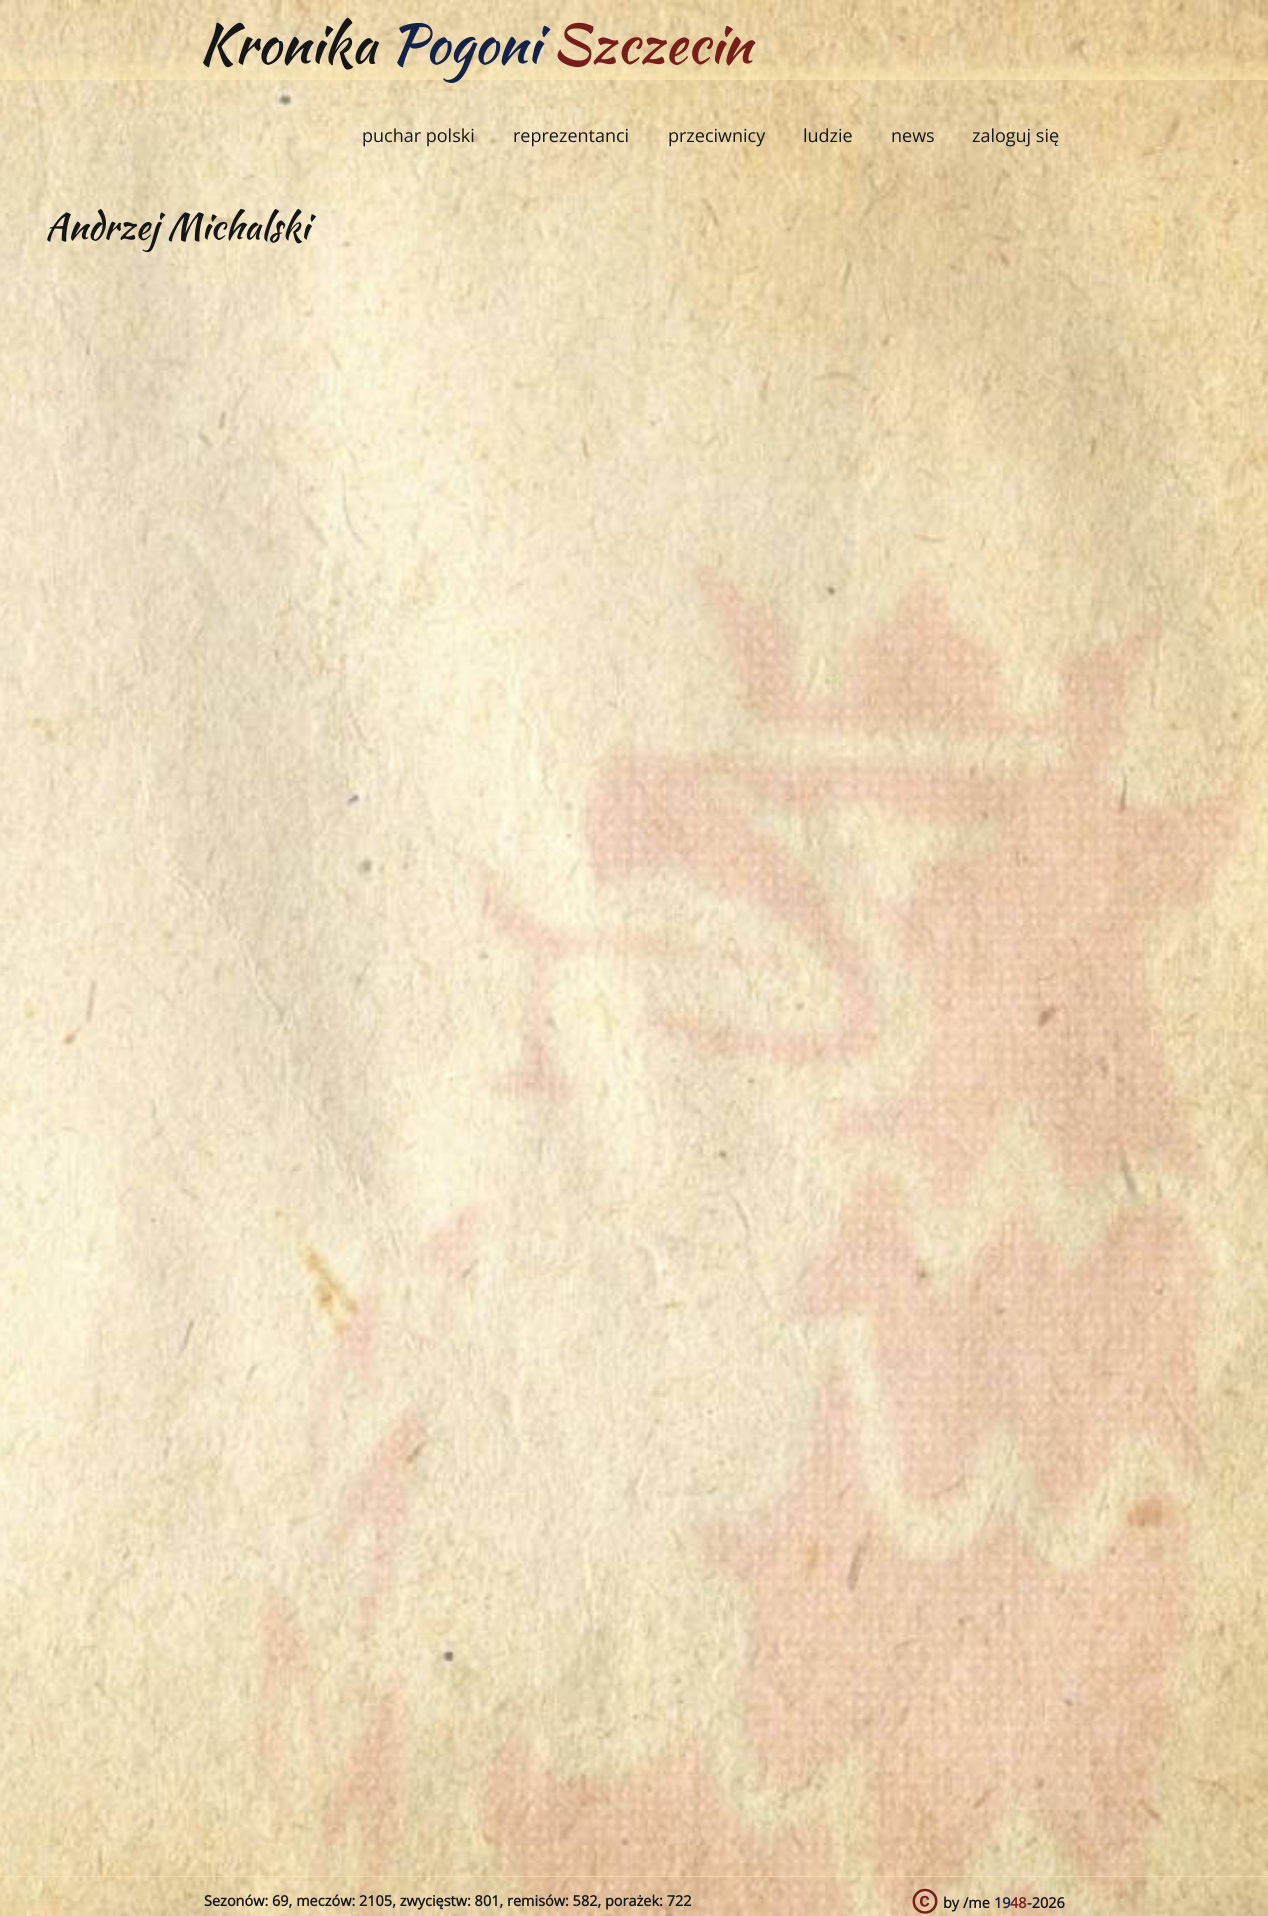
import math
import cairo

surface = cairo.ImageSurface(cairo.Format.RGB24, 1268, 1916)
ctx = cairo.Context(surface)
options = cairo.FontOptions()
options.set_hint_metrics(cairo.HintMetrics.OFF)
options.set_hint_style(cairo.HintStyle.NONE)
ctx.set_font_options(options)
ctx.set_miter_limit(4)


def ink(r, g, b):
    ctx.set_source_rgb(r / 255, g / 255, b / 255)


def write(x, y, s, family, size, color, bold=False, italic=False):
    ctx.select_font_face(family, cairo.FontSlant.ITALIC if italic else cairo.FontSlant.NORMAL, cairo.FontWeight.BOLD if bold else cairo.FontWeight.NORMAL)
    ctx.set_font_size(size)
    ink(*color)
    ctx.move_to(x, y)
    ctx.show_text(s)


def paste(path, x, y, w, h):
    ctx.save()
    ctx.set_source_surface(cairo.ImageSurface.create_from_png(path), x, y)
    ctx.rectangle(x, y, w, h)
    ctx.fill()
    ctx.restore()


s1 = dict(family="Kaushan Script", size=54.5, color=(22, 22, 22))
s2 = dict(family="Kaushan Script", size=54.5, color=(19, 34, 73))
s3 = dict(family="Kaushan Script", size=54.5, color=(119, 30, 24))
s4 = dict(family="Open Sans", size=18, color=(22, 22, 22))
s5 = dict(family="Kaushan Script", size=36.25, color=(22, 22, 22))
s6 = dict(family="Open Sans", size=14.5, color=(22, 22, 22), bold=True)
s7 = dict(family="Open Sans", size=14.5, color=(19, 34, 73), bold=True)
s8 = dict(family="Open Sans", size=14.5, color=(119, 30, 24), bold=True)

ink(255, 255, 255)
ctx.paint()
paste("pic1.png", 0, 0, 1268, 1916)
write(199, 63, "Kronika", **s1)
write(390, 63, "Pogoni", **s2)
write(552, 63, "Szczecin", **s3)
write(362, 142, "puchar polski", **s4)
write(513, 142, "reprezentanci", **s4)
write(668, 142, "przeciwnicy", **s4)
write(803, 142, "ludzie", **s4)
write(891, 142, "news", **s4)
write(972, 142, "zaloguj się", **s4)
write(45, 239, "Andrzej Michalski", **s5)
ctx.set_source_rgba(1, 0.925, 0.702, 0.5)
ctx.rectangle(0, 1876, 1268, 1)
ctx.fill()
write(204, 1906, "Sezonów: 69, meczów: 2105, zwycięstw: 801, remisów: 582, porażek: 722", **s6)
paste("pic2.png", 912, 1888, 26, 26)
write(943, 1908, "by /me", **s6)
write(994, 1908, "19", **s7)
write(1010, 1908, "48", **s8)
write(1027, 1908, "-2026", **s6)
surface.write_to_png("screenshot.png")
